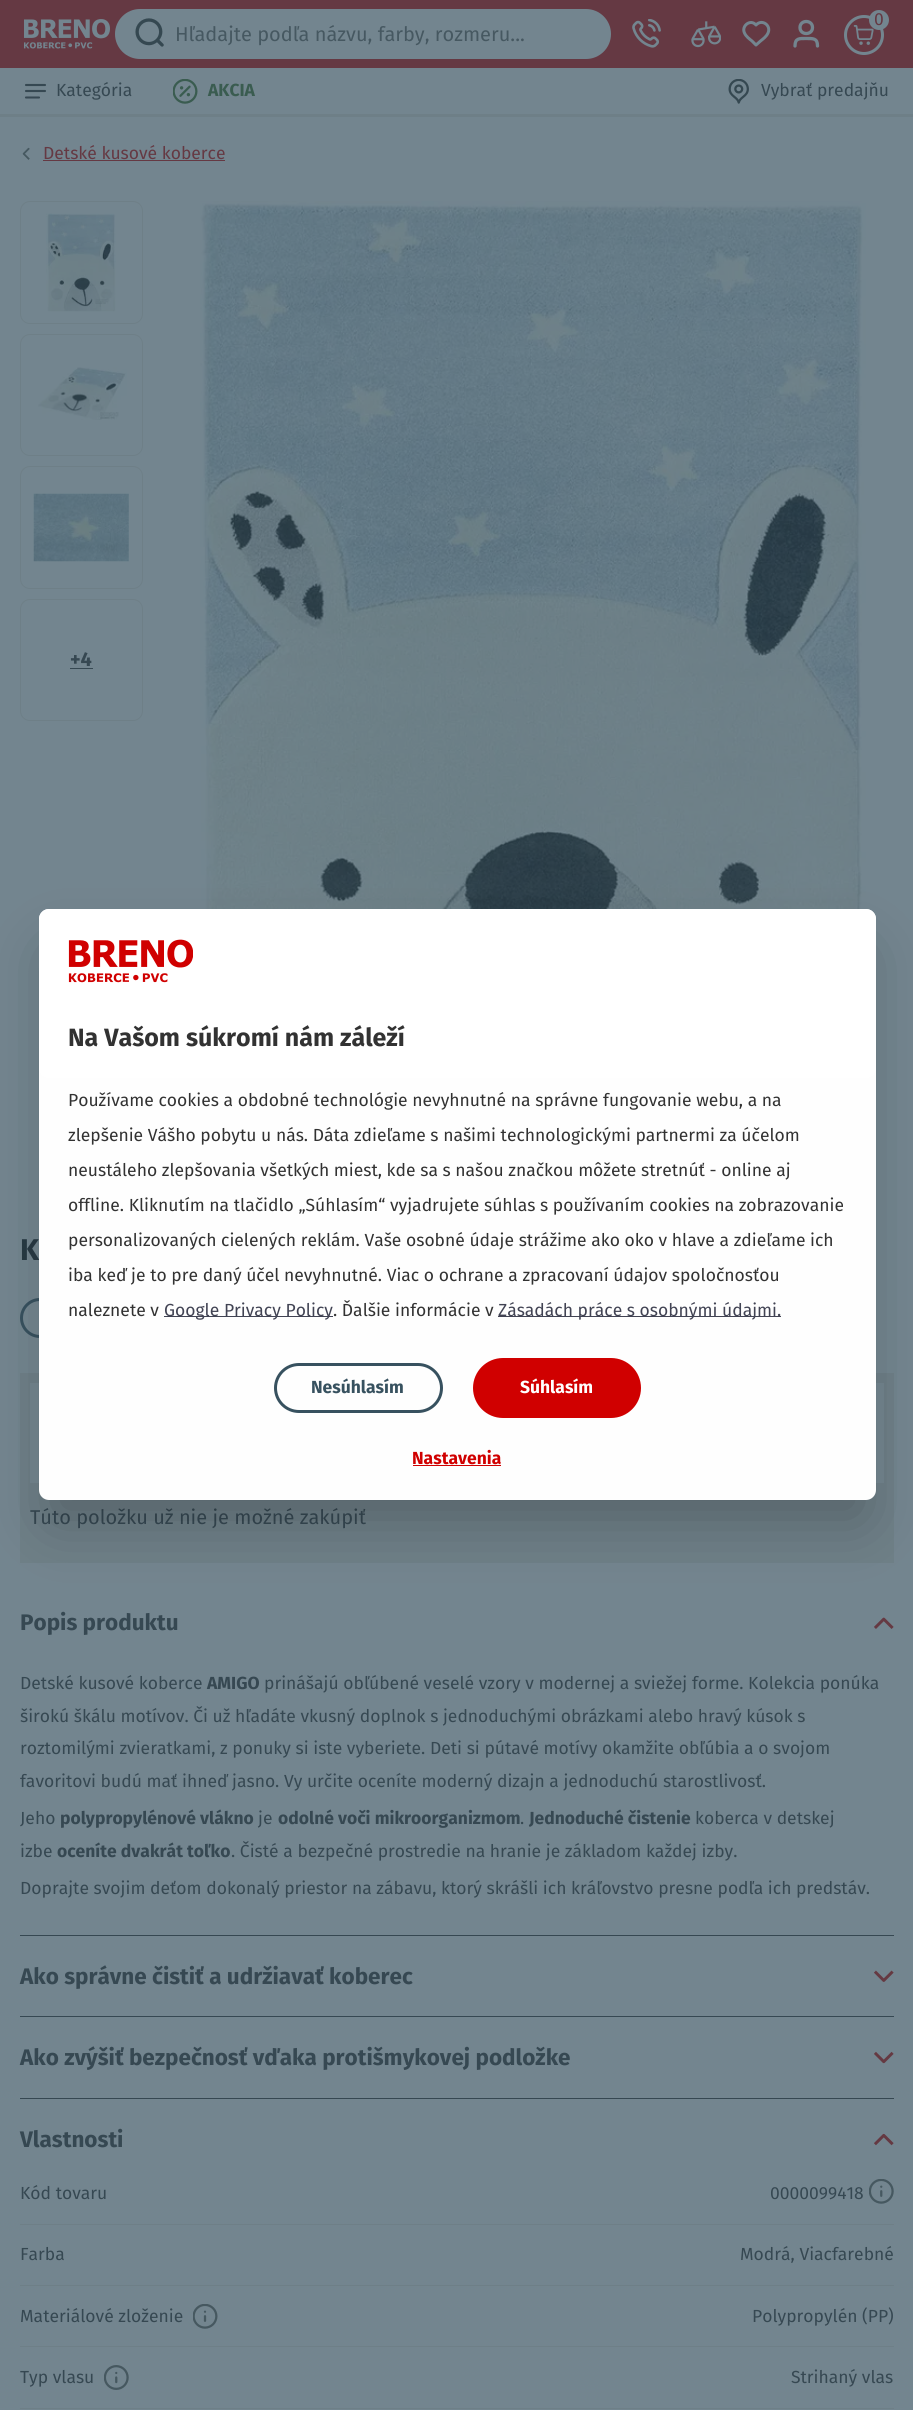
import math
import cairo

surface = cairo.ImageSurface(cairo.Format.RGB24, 913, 2410)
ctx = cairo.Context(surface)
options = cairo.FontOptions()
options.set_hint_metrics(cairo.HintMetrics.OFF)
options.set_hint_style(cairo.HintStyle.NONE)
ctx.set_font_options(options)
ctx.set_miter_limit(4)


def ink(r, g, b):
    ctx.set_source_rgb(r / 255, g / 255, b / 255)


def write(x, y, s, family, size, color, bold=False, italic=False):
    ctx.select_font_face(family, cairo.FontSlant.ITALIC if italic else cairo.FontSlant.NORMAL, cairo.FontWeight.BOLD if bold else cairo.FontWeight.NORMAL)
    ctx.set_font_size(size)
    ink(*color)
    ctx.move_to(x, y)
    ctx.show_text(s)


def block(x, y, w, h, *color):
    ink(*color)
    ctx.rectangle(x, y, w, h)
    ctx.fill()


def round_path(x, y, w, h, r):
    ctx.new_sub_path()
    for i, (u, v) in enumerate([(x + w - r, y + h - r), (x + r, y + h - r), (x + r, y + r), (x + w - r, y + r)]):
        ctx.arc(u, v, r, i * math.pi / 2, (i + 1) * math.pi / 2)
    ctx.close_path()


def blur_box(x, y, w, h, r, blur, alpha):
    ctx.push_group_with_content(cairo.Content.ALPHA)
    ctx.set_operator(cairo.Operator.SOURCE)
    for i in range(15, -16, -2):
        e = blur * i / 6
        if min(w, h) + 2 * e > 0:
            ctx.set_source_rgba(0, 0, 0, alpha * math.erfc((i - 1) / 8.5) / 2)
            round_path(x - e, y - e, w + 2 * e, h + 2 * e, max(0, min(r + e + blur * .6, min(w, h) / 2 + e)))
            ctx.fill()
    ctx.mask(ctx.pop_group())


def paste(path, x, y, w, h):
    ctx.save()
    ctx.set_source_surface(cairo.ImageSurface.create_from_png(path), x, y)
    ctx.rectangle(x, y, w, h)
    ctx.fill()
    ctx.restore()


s1 = dict(family="Fira Sans", size=20, color=(70, 88, 97))
s2 = dict(family="Fira Sans", size=17.5, color=(101, 57, 67))
s3 = dict(family="Fira Sans", size=17.5, color=(54, 72, 82))
s4 = dict(family="Fira Sans", size=17.5, color=(58, 92, 80), bold=True)
s5 = dict(family="Fira Sans", size=20, color=(54, 72, 82), bold=True)
s6 = dict(family="Fira Sans", size=30, color=(39, 57, 67), bold=True)
s7 = dict(family="Fira Sans", size=20, color=(54, 72, 82))
s8 = dict(family="Fira Sans", size=22.5, color=(54, 72, 82), bold=True)
s9 = dict(family="Fira Sans", size=17.5, color=(54, 72, 82), bold=True)
s10 = dict(family="Fira Sans", size=25, color=(50, 50, 50), bold=True)
s11 = dict(family="Fira Sans", size=17.5, color=(50, 50, 50))
s12 = dict(family="Fira Sans", size=17.5, color=(65, 67, 83))
s13 = dict(family="Fira Sans", size=17.5, color=(55, 81, 95), bold=True)
s14 = dict(family="Fira Sans", size=17.5, color=(255, 255, 255), bold=True)
s15 = dict(family="Fira Sans", size=17.5, color=(208, 0, 0), bold=True)

ink(115, 133, 143)
ctx.paint()
block(0, 114, 913, 3, 110, 127, 135)
block(0, 0, 913, 68, 101, 57, 67)
paste("pic1.png", 24, 19, 86, 30)
ink(115, 133, 143)
round_path(115, 9, 496, 50, 25)
ctx.fill()
paste("pic2.png", 135, 18, 29, 29)
write(175, 41, "Hľadajte podľa názvu, farby, rozmeru...", **s1)
paste("pic3.png", 632, 19, 29, 29)
paste("pic4.png", 691, 21, 30, 27)
ctx.new_path()
ctx.move_to(756, 25)
ctx.curve_to(750.5, 18.5, 741, 26, 744.5, 33)
ctx.curve_to(746, 36.5, 749.5, 39, 752, 41)
ctx.line_to(756, 45)
ctx.line_to(760.5, 41)
ctx.curve_to(763, 39, 766.5, 36.5, 768, 33)
ctx.curve_to(771.5, 25.5, 762, 18.5, 756, 25)
ctx.close_path()
ink(115, 133, 143)
ctx.set_line_width(3)
ctx.set_line_cap(cairo.LineCap.ROUND)
ctx.set_line_join(cairo.LineJoin.ROUND)
ctx.stroke()
ctx.new_path()
ctx.move_to(817.5, 46)
ctx.curve_to(817.5, 38, 813, 38.5, 806, 38.5)
ctx.curve_to(799.5, 38.5, 795, 38, 795, 46)
ctx.move_to(812.5, 27.5)
ctx.curve_to(812.5, 35.5, 800, 35.5, 800, 27.5)
ctx.curve_to(800, 19.5, 812.5, 19.5, 812.5, 27.5)
ctx.close_path()
ctx.set_line_width(3.3)
ctx.stroke()
ctx.arc(864, 35, 18.5, 0, 2 * math.pi)
ctx.set_line_width(3)
ctx.set_line_cap(cairo.LineCap.BUTT)
ctx.set_line_join(cairo.LineJoin.MITER)
ctx.stroke()
paste("pic5.png", 853, 25, 21, 20)
ctx.arc(879, 20, 10, 0, 2 * math.pi)
ctx.fill()
write(874, 25, "0", **s2)
ctx.new_path()
ctx.move_to(26, 91)
ctx.line_to(45, 91)
ctx.move_to(26, 85)
ctx.line_to(45, 85)
ctx.move_to(26, 97.5)
ctx.line_to(39, 97.5)
ink(54, 72, 82)
ctx.set_line_width(2.1)
ctx.set_line_cap(cairo.LineCap.ROUND)
ctx.set_line_join(cairo.LineJoin.ROUND)
ctx.stroke()
write(56, 96, "Kategória", **s3)
paste("pic6.png", 173, 79, 25, 25)
write(208, 96, "AKCIA", **s4)
paste("pic7.png", 728, 79, 21, 25)
write(761, 96, "Vybrať predajňu", **s3)
paste("pic8.png", 22, 147, 8, 13)
write(43, 159, "Detské kusové koberce", **s2)
block(43, 160, 182, 1, 101, 57, 67)
round_path(20.5, 201.5, 122, 122, 9.5)
ink(110, 127, 135)
ctx.set_line_width(1)
ctx.set_line_cap(cairo.LineCap.BUTT)
ctx.set_line_join(cairo.LineJoin.MITER)
ctx.stroke()
paste("pic9.png", 46, 213, 70, 99)
round_path(20.5, 334.5, 122, 121, 9.5)
ctx.stroke()
paste("pic10.png", 38, 367, 89, 53)
round_path(20.5, 466.5, 122, 122, 9.5)
ctx.stroke()
paste("pic11.png", 33, 493, 96, 69)
round_path(20.5, 599.5, 122, 121, 9.5)
ctx.stroke()
write(70, 666, "+4", **s5)
block(70, 668, 23, 1, 54, 72, 82)
paste("pic12.png", 200, 201, 666, 708)
write(20, 1260, "K", **s6)
round_path(21.5, 1299.5, 103, 37, 18.5)
ink(55, 81, 95)
ctx.set_line_width(3)
ctx.stroke()
block(20, 1373, 874, 190, 110, 127, 135)
block(30, 1383, 854, 100, 115, 133, 143)
write(30, 1524, "Túto položku už nie je možné zakúpiť", **s7)
block(20, 1935, 874, 1, 54, 72, 82)
write(20, 1630, "Popis produktu", **s8)
paste("pic13.png", 874, 1617, 20, 12)
write(20, 1689, "Detské kusové koberce", **s3)
write(207, 1689, "AMIGO", **s9)
write(264, 1689, "prinášajú obľúbené veselé vzory v modernej a sviežej forme. Kolekcia ponúka", **s3)
write(20, 1722, "širokú škálu motívov. Či už hľadáte vkusný doplnok s jednoduchými obrázkami alebo hravý kúsok s", **s3)
write(20, 1754, "roztomilými zvieratkami, z ponuky si iste vyberiete. Deti si pútavé motívy okamžite obľúbia a o svojom", **s3)
write(20, 1787, "favoritovi budú mať ihneď jasno. Vy určite oceníte moderný dizajn a jednoduchú starostlivosť.", **s3)
write(20, 1824, "Jeho", **s3)
write(60, 1824, "polypropylénové vlákno", **s9)
write(258, 1824, "je", **s3)
write(278, 1824, "odolné voči mikroorganizmom", **s9)
write(520, 1824, ".", **s3)
write(529, 1824, "Jednoduché čistenie", **s9)
write(695, 1824, "koberca v detskej", **s3)
write(20, 1857, "izbe", **s3)
write(57, 1857, "oceníte dvakrát toľko", **s9)
write(231, 1857, ". Čisté a bezpečné prostredie na hranie je základom každej izby.", **s3)
write(20, 1894, "Doprajte svojim deťom dokonalý priestor na zábavu, ktorý skrášli ich kráľovstvo presne podľa ich predstáv.", **s3)
block(20, 2016, 874, 1, 54, 72, 82)
write(20, 1984, "Ako správne čistiť a udržiavať koberec", **s8)
paste("pic14.png", 874, 1970, 20, 12)
block(20, 2098, 874, 1, 54, 72, 82)
write(20, 2065, "Ako zvýšiť bezpečnosť vďaka protišmykovej podložke", **s8)
paste("pic15.png", 874, 2051, 20, 13)
write(20, 2147, "Vlastnosti", **s8)
paste("pic16.png", 874, 2133, 20, 13)
block(20, 2224, 874, 1, 110, 127, 135)
write(20, 2199, "Kód tovaru", **s3)
write(770, 2199, "0000099418", **s3)
paste("pic17.png", 869, 2179, 25, 25)
block(20, 2285, 874, 1, 110, 127, 135)
write(20, 2260, "Farba", **s3)
write(740, 2260, "Modrá, Viacfarebné", **s3)
block(20, 2346, 874, 1, 110, 127, 135)
write(20, 2322, "Materiálové zloženie", **s3)
paste("pic18.png", 193, 2304, 25, 25)
write(752, 2322, "Polypropylén (PP)", **s3)
block(20, 2408, 874, 1, 110, 127, 135)
write(20, 2383, "Typ vlasu", **s3)
paste("pic19.png", 104, 2365, 25, 25)
write(791, 2383, "Strihaný vlas", **s3)
ink(0, 0, 0)
blur_box(54, 955, 807, 561, 0, 31, 0.25)
ink(254, 254, 254)
round_path(39, 909, 837, 591, 10)
ctx.fill()
ink(255, 255, 255)
round_path(39, 909, 837, 169, 10)
ctx.fill()
paste("pic20.png", 68, 939, 125, 44)
write(68, 1046, "Na Vašom súkromí nám záleží", **s10)
write(68, 1106, "Používame cookies a obdobné technológie nevyhnutné na správne fungovanie webu, a na", **s11)
write(68, 1141, "zlepšenie Vášho pobytu u nás. Dáta zdieľame s našimi technologickými partnermi za účelom", **s11)
write(68, 1176, "neustáleho zlepšovania všetkých miest, kde sa s našou značkou môžete stretnúť - online aj", **s11)
write(68, 1211, "offline. Kliknutím na tlačidlo „Súhlasím“ vyjadrujete súhlas s používaním cookies na zobrazovanie", **s11)
write(68, 1246, "personalizovaných cielených reklám. Vaše osobné údaje strážime ako oko v hlave a zdieľame ich", **s11)
write(68, 1281, "iba keď je to pre daný účel nevyhnutné. Viac o ochrane a zpracovaní údajov spoločnosťou", **s11)
write(68, 1316, "naleznete v", **s11)
block(164, 1316, 169, 1, 65, 67, 83)
write(164, 1316, "Google Privacy Policy", **s12)
write(333, 1316, ". Ďalšie informácie v", **s11)
block(498, 1316, 283, 1, 65, 67, 83)
write(498, 1316, "Zásadách práce s osobnými údajmi.", **s12)
round_path(275.5, 1364.5, 166, 47, 23.5)
ink(55, 81, 95)
ctx.stroke()
write(311, 1393, "Nesúhlasím", **s13)
ink(208, 0, 0)
round_path(474.5, 1359.5, 165, 57, 28.5)
ctx.fill_preserve()
ctx.stroke()
write(520, 1393, "Súhlasím", **s14)
write(412, 1464, "Nastavenia", **s15)
block(413, 1465, 88, 1, 208, 0, 0)
surface.write_to_png("screenshot.png")
